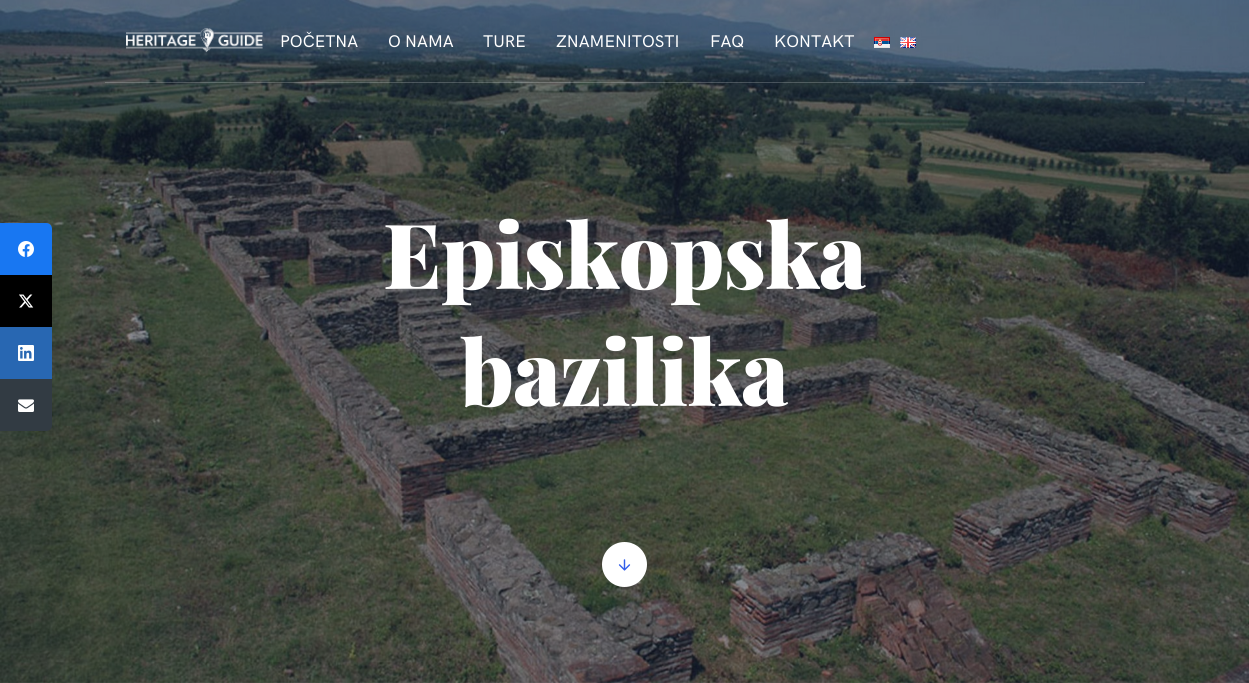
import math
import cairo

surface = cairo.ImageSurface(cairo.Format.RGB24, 1249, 683)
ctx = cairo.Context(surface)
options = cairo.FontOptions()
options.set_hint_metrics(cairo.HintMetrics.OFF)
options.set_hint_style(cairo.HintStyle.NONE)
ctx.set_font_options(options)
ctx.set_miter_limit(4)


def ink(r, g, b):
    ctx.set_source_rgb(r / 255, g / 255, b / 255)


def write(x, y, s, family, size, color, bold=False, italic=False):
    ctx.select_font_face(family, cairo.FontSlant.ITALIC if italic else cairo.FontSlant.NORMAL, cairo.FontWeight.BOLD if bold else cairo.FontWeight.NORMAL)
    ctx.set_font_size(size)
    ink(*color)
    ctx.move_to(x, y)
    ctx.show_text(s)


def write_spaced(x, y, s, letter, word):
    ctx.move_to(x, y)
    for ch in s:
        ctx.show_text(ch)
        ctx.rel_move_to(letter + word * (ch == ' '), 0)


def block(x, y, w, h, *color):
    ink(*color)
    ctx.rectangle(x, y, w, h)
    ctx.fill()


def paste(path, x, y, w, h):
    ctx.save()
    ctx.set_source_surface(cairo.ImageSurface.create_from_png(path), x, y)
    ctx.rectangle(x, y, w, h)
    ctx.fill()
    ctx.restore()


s1 = dict(family="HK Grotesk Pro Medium", size=17, color=(255, 255, 255))

ink(255, 255, 255)
ctx.paint()
paste("pic8.png", 0, 0, 1249, 683)
paste("pic1.png", 126, 27, 137, 26)
write(280, 47, "POČETNA", **s1)
write(388, 47, "O NAMA", **s1)
write(483, 47, "TURE", **s1)
write(556, 47, "ZNAMENITOSTI", **s1)
write(710, 47, "FAQ", **s1)
write(774, 47, "KONTAKT", **s1)
paste("pic2.png", 874, 37, 16, 11)
paste("pic3.png", 900, 37, 16, 11)
ctx.set_source_rgba(1, 1, 1, 0.2)
ctx.rectangle(105, 82, 1040, 1)
ctx.fill()
ink(24, 119, 242)
ctx.new_path()
ctx.move_to(0, 223)
ctx.line_to(46, 223)
ctx.curve_to(49.5, 223, 52, 225.5, 52, 229)
ctx.line_to(52, 275)
ctx.line_to(0, 275)
ctx.close_path()
ctx.fill()
paste("pic4.png", 18, 241, 16, 16)
block(0, 275, 52, 52, 0, 0, 0)
paste("pic5.png", 19, 294, 15, 14)
block(0, 327, 52, 52, 40, 103, 178)
paste("pic6.png", 18, 345, 16, 16)
ink(50, 59, 67)
ctx.new_path()
ctx.move_to(0, 379)
ctx.line_to(52, 379)
ctx.line_to(52, 425)
ctx.curve_to(52, 428.5, 49.5, 431, 46, 431)
ctx.line_to(0, 431)
ctx.close_path()
ctx.fill()
paste("pic7.png", 18, 399, 16, 13)
ctx.select_font_face("Playfair Display Black")
ctx.set_font_size(90)
ink(255, 255, 255)
write_spaced(383, 289, "Episkopska", -1, 0)
write_spaced(460, 406, "bazilika", -1, 0)
ctx.new_path()
ctx.arc(624.5, 564.5, 22.5, 0, 2 * math.pi)
ctx.fill()
paste("pic9.png", 618, 559, 13, 12)
surface.write_to_png("screenshot.png")
